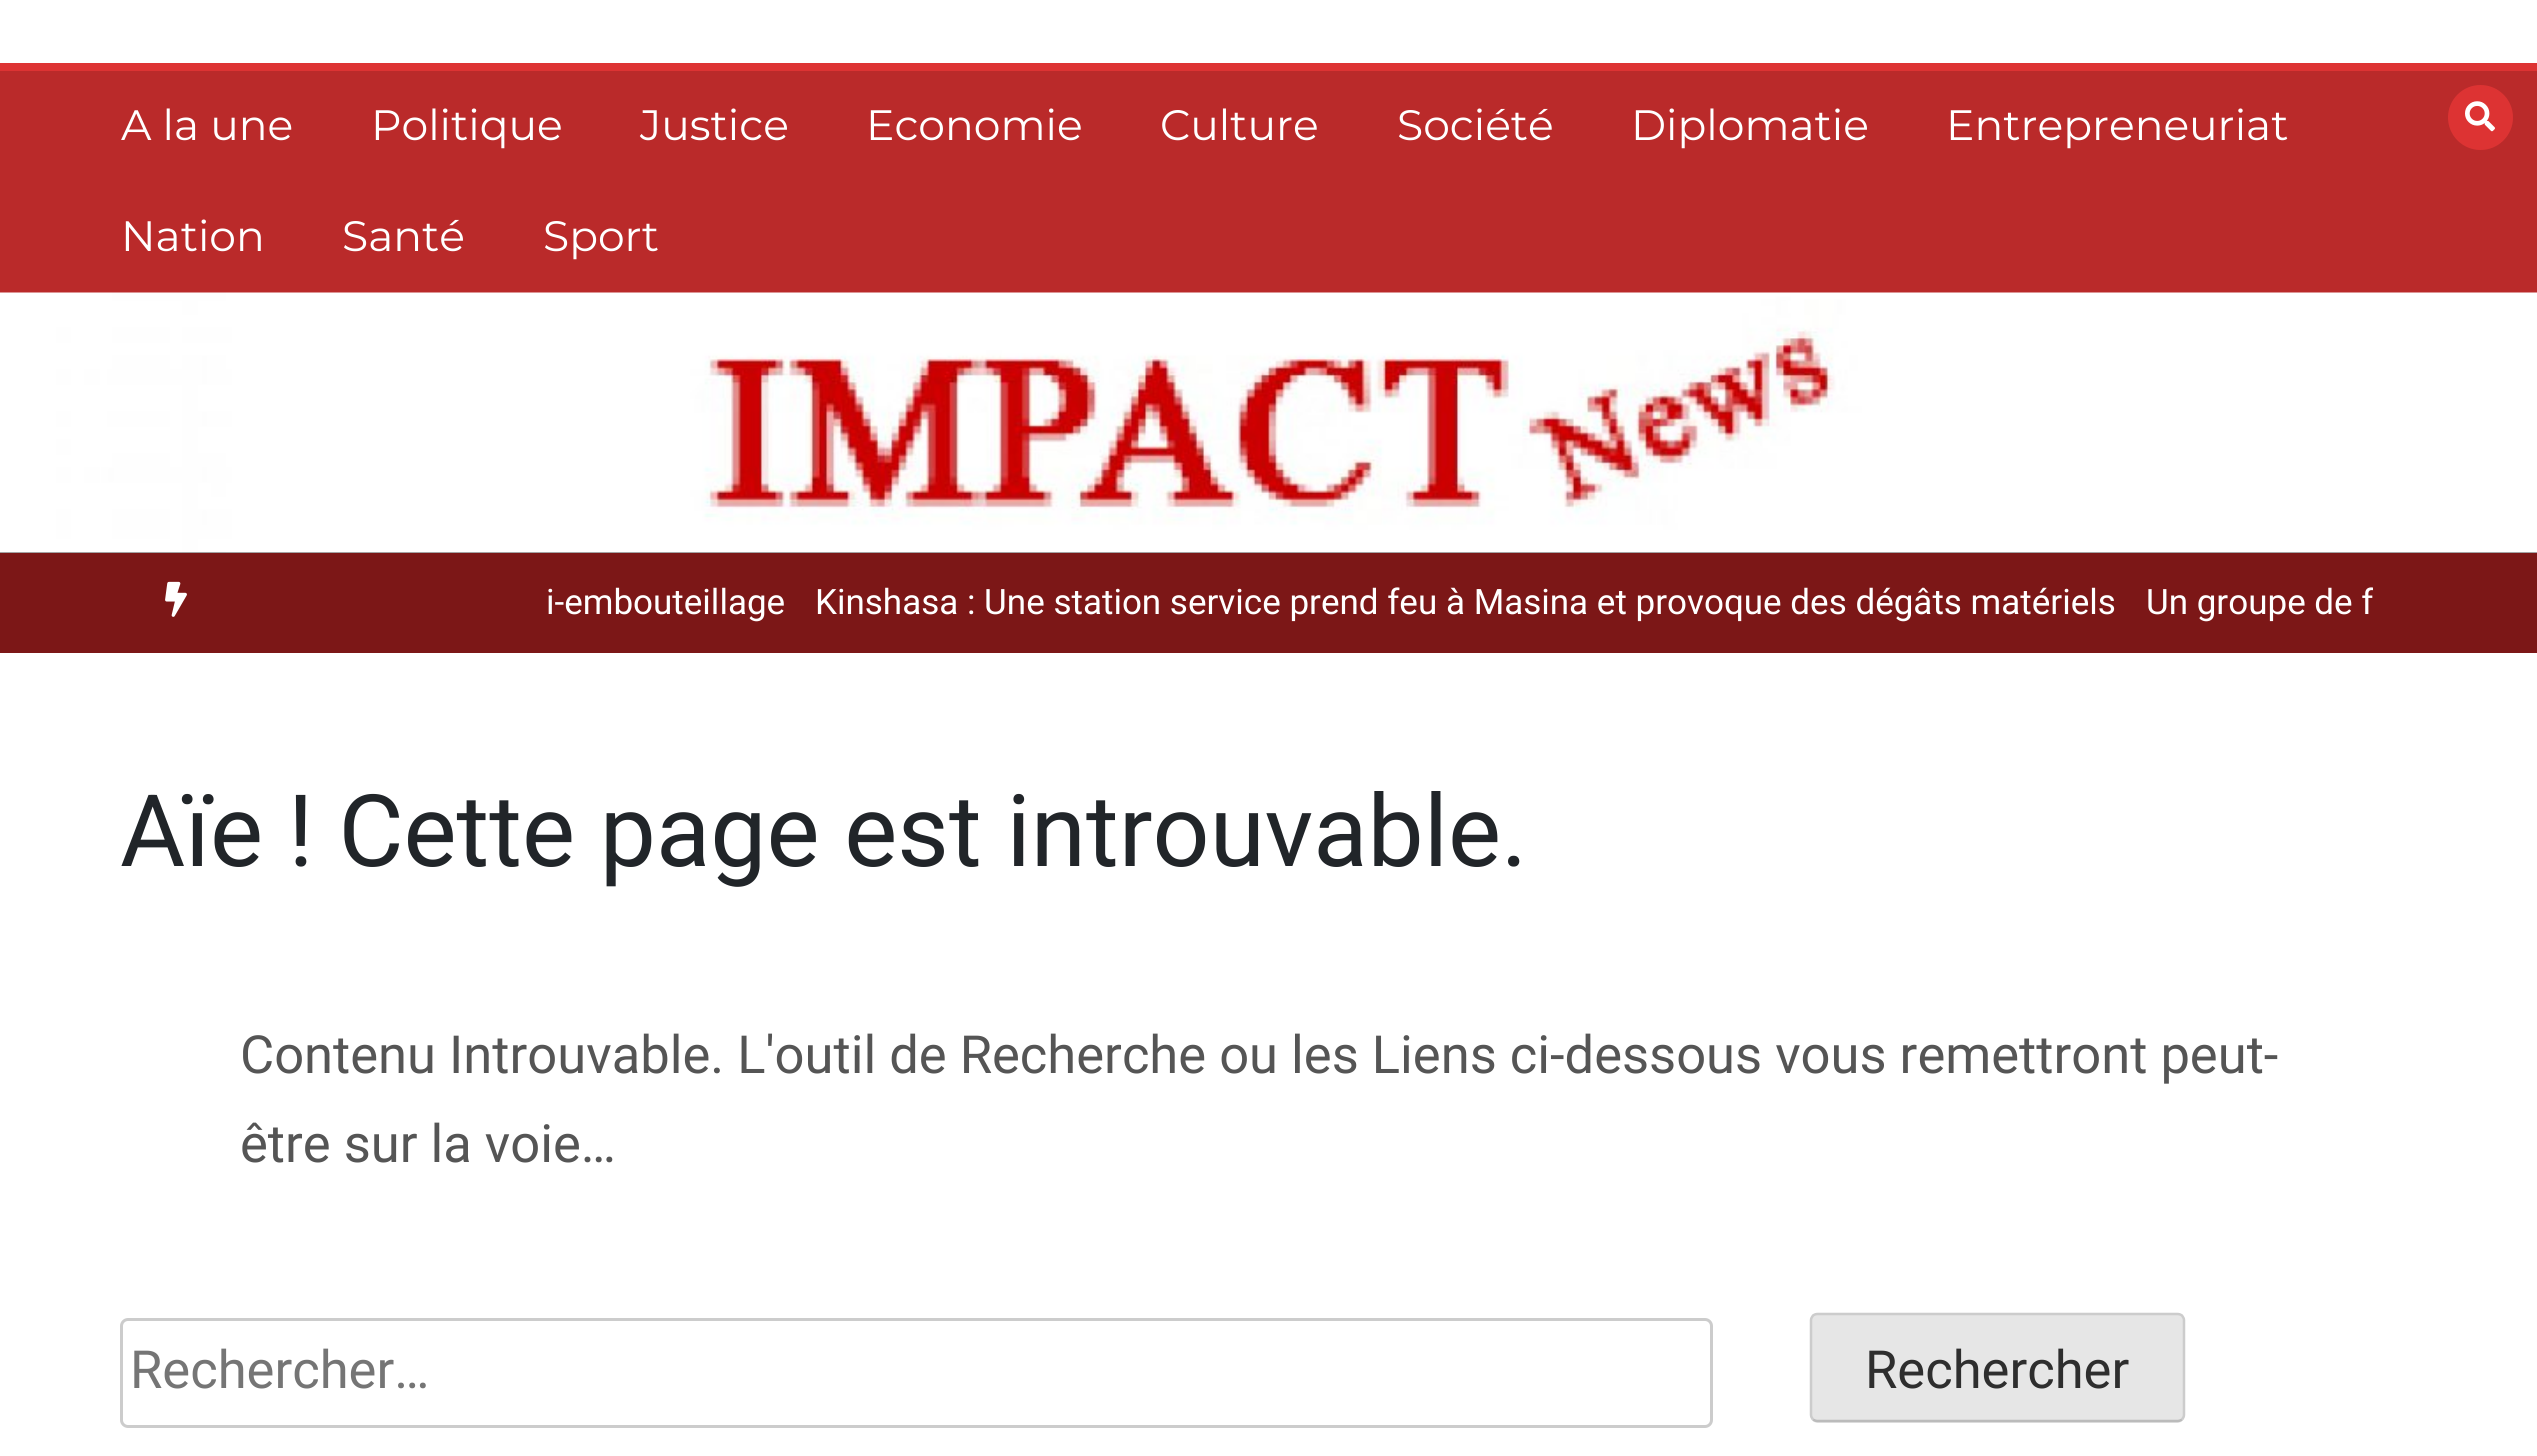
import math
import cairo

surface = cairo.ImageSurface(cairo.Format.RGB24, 2537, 1456)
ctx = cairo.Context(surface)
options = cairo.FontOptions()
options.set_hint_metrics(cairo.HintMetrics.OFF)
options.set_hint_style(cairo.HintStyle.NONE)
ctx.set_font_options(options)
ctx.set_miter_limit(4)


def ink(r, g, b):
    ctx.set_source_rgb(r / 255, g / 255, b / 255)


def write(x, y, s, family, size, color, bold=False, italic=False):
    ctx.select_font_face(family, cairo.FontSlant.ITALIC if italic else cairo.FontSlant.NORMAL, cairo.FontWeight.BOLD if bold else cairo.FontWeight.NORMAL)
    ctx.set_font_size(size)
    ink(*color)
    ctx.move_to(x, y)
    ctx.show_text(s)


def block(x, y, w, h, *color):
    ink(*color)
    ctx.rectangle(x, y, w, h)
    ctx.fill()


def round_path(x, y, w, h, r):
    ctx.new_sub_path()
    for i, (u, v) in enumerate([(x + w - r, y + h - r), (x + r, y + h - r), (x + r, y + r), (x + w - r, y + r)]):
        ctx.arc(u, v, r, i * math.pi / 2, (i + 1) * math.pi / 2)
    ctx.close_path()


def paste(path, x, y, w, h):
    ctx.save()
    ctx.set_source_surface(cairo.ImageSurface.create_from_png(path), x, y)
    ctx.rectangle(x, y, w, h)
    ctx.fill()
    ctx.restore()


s1 = dict(family="Montserrat", size=42.5, color=(255, 255, 255))
s2 = dict(family="Roboto", size=35, color=(255, 255, 255))
s3 = dict(family="Roboto", size=100, color=(33, 37, 41))
s4 = dict(family="Roboto", size=52.5, color=(85, 85, 85))
s5 = dict(family="Roboto", size=52.5, color=(117, 117, 117))
s6 = dict(family="Roboto", size=52.5, color=(46, 46, 46))

ink(255, 255, 255)
ctx.paint()
block(0, 71, 2537, 222, 186, 42, 42)
block(0, 63, 2537, 8, 221, 51, 51)
write(121, 140, "A la une", **s1)
write(371, 140, "Politique", **s1)
write(640, 140, "Justice", **s1)
write(866, 140, "Economie", **s1)
write(1160, 140, "Culture", **s1)
write(1397, 140, "Société", **s1)
write(1631, 140, "Diplomatie", **s1)
write(1946, 140, "Entrepreneuriat", **s1)
write(121, 251, "Nation", **s1)
write(342, 251, "Santé", **s1)
write(543, 251, "Sport", **s1)
ink(221, 51, 51)
ctx.new_path()
ctx.arc(2480.5, 117.5, 32.5, 0, 2 * math.pi)
ctx.fill()
paste("pic1.png", 2465, 101, 30, 31)
block(0, 552, 2537, 1, 73, 73, 73)
paste("pic2.png", 0, 292, 2537, 261)
block(0, 553, 2537, 100, 124, 23, 23)
paste("pic3.png", 165, 581, 22, 36)
write(546, 614, "i-embouteillage", **s2)
write(815, 614, "Kinshasa : Une station service prend feu à Masina et provoque des dégâts matériels", **s2)
ctx.save()
ctx.rectangle(540, 573, 1833, 60)
ctx.clip()
write(2146, 614, "Un groupe de f", **s2)
ctx.restore()
write(120, 866, "Aïe ! Cette page est introuvable.", **s3)
write(240, 1073, "Contenu Introuvable. L'outil de Recherche ou les Liens ci-dessous vous remettront peut-", **s4)
write(240, 1162, "être sur la voie…", **s4)
round_path(121.5, 1319.5, 1590, 107, 6.5)
ink(204, 204, 204)
ctx.set_line_width(3)
ctx.stroke()
write(130, 1388, "Rechercher…", **s5)
ink(230, 230, 230)
round_path(1810, 1313, 375, 110, 8)
ctx.fill()
ctx.new_path()
ctx.move_to(2182, 1419.5)
ctx.curve_to(2180.5, 1420.5, 2179, 1421, 2177.5, 1421)
ctx.line_to(1817.5, 1421)
ctx.curve_to(1816, 1421, 1814.5, 1420.5, 1813, 1419.5)
ink(187, 187, 187)
ctx.set_line_width(2.5)
ctx.stroke()
ctx.new_path()
ctx.move_to(1813, 1419.5)
ctx.curve_to(1812, 1418, 1811, 1416.5, 1811, 1415)
ctx.line_to(1811, 1320)
ctx.curve_to(1811, 1318.5, 1812, 1317, 1813, 1315.5)
ctx.curve_to(1814.5, 1314.5, 1816, 1314, 1817.5, 1314)
ctx.line_to(2177.5, 1314)
ctx.curve_to(2179, 1314, 2180.5, 1314.5, 2182, 1315.5)
ctx.curve_to(2183, 1317, 2184, 1318.5, 2184, 1320)
ctx.line_to(2184, 1415)
ctx.curve_to(2184, 1416.5, 2183, 1418, 2182, 1419.5)
ink(204, 204, 204)
ctx.stroke()
write(1865, 1388, "Rechercher", **s6)
surface.write_to_png("screenshot.png")
